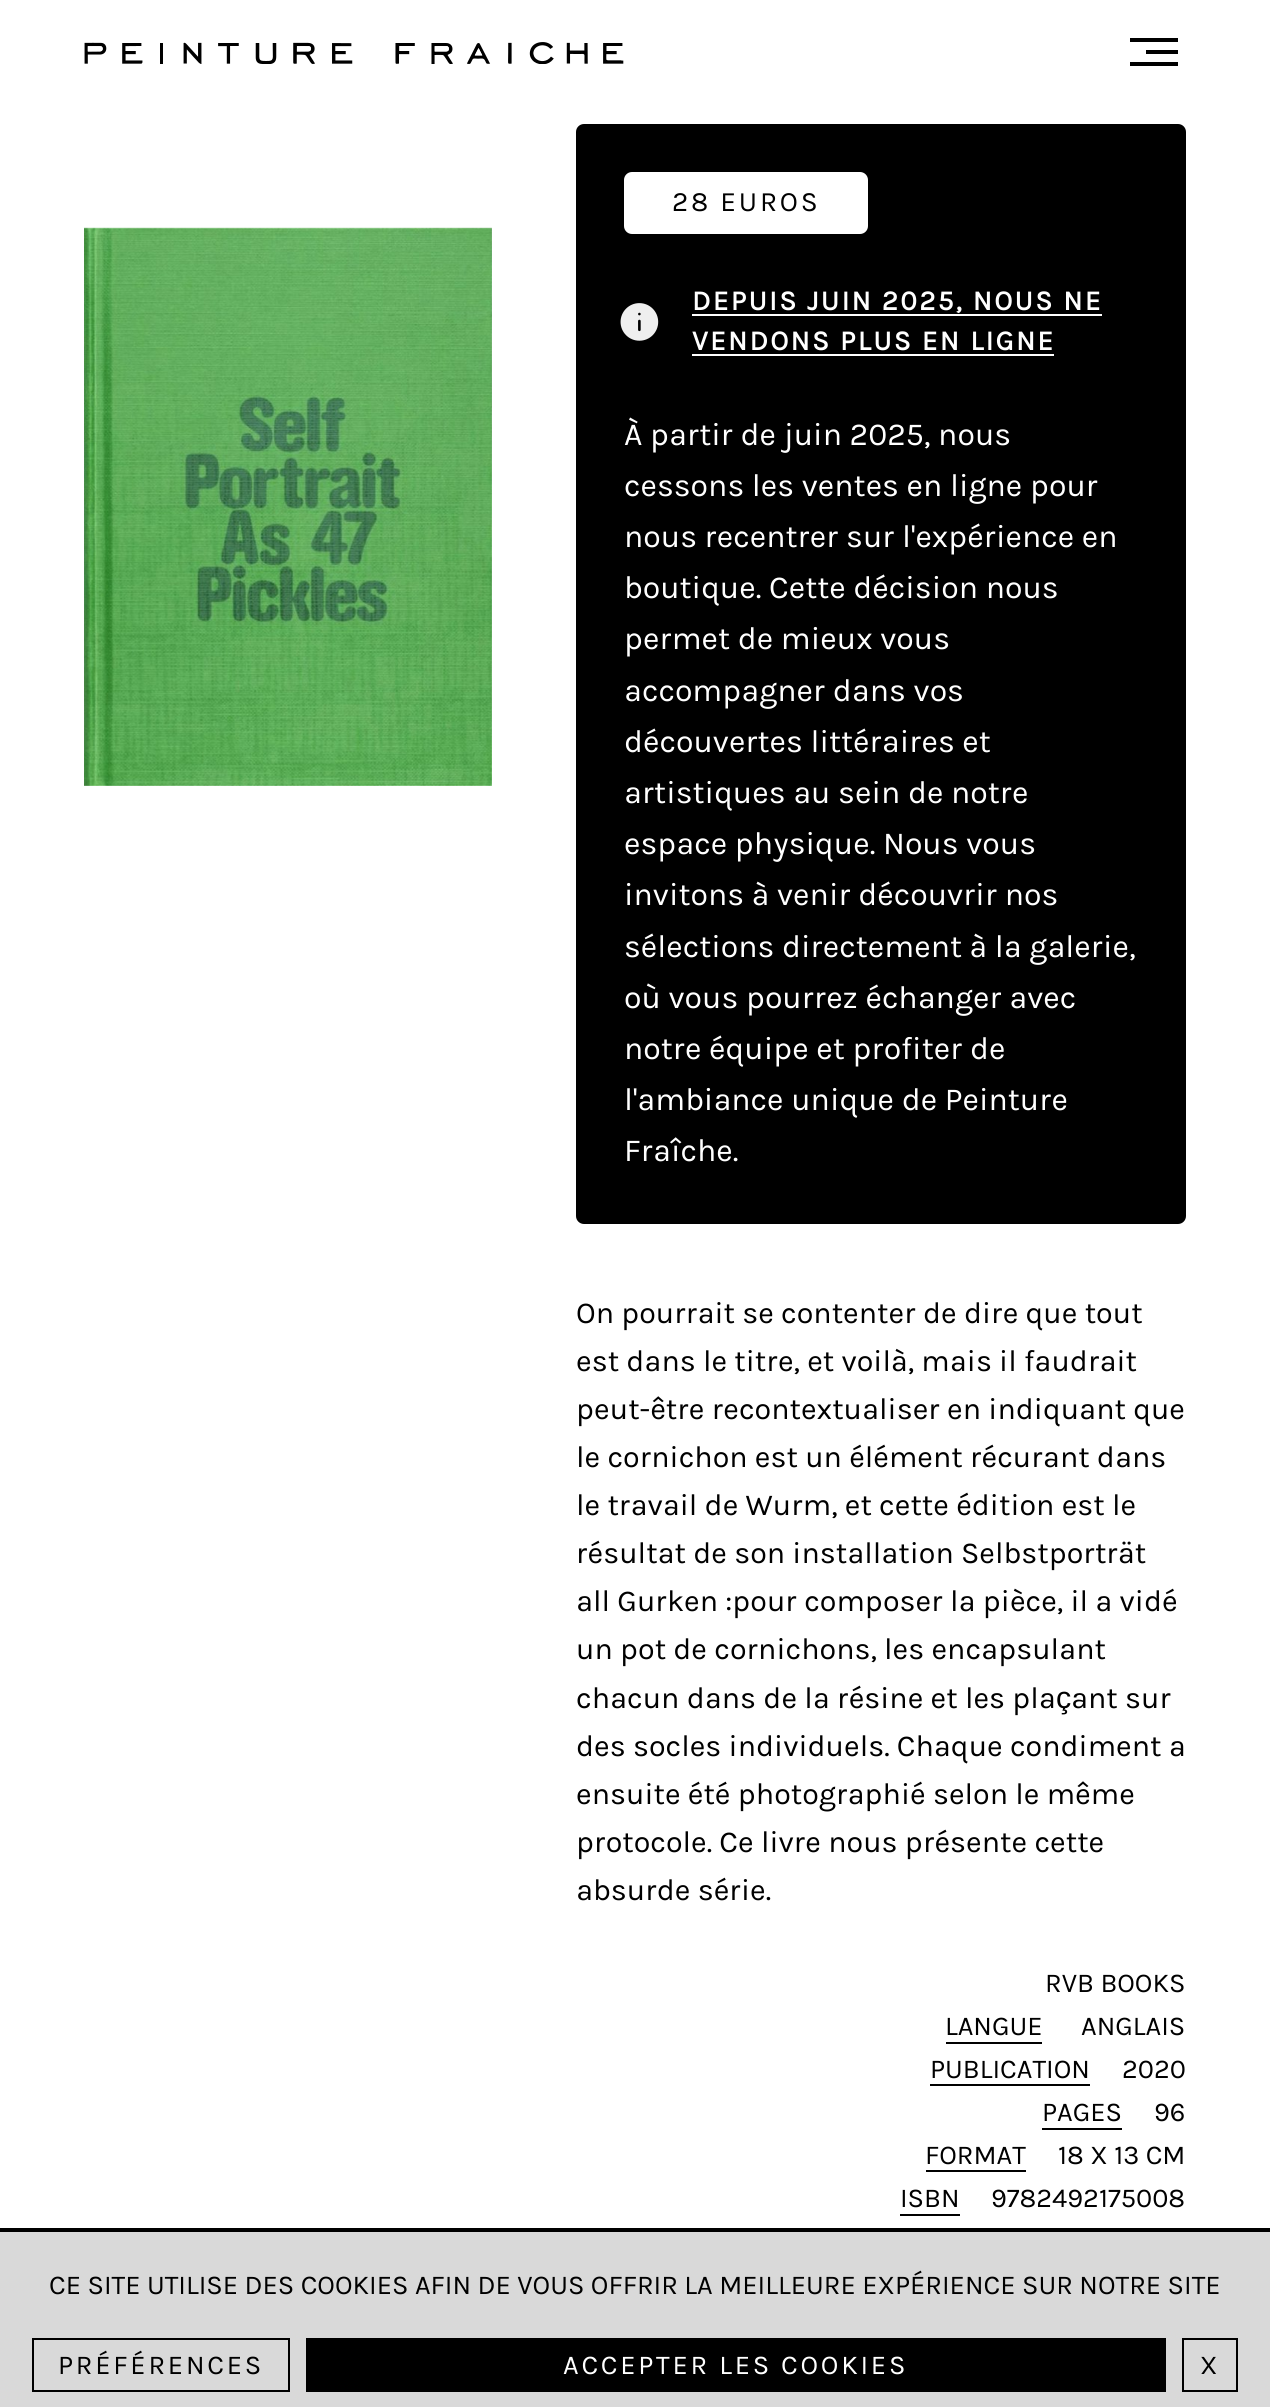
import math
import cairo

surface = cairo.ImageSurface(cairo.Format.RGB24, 1270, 2407)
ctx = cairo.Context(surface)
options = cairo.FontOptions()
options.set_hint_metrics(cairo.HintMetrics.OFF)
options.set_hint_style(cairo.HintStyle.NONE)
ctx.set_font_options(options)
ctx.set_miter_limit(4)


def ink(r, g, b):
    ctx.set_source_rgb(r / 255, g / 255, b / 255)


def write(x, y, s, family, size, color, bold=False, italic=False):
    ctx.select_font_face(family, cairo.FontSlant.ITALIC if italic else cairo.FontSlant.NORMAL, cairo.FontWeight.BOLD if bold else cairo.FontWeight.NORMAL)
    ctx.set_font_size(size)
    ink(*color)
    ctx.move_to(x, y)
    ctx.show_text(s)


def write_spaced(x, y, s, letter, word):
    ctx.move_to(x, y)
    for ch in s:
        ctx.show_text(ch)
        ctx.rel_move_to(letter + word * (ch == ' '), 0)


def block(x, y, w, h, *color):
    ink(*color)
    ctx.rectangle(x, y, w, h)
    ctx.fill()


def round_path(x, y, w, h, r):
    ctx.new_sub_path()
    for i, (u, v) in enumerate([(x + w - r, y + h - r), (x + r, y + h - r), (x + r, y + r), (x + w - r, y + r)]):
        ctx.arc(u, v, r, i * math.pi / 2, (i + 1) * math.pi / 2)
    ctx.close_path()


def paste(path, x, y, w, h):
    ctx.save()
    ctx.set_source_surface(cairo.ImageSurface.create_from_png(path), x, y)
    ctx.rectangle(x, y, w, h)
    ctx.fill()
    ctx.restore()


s1 = dict(family="Karla", size=32, color=(255, 255, 255))
s2 = dict(family="Karla", size=30.4, color=(0, 0, 0))
s3 = dict(family="Liberation Sans", size=30.4, color=(0, 0, 0))
s4 = dict(family="Karla", size=27.2, color=(0, 0, 0))

ink(255, 255, 255)
ctx.paint()
paste("pic1.png", 84, 42, 540, 22)
block(1130, 38, 48, 4, 0, 0, 0)
block(1146, 50, 32, 4, 0, 0, 0)
block(1130, 62, 48, 4, 0, 0, 0)
paste("pic2.png", 84, 227, 408, 559)
round_path(576, 124, 610, 1100, 8)
ctx.fill()
ink(255, 255, 255)
round_path(624, 172, 244, 62, 8)
ctx.fill()
ctx.select_font_face("Karla")
ctx.set_font_size(28)
ink(0, 0, 0)
write_spaced(672, 211, "28 EUROS", 2.75, 0)
paste("pic3.png", 620, 303, 39, 38)
ctx.select_font_face("Karla", cairo.FontSlant.NORMAL, cairo.FontWeight.BOLD)
ink(255, 255, 255)
write_spaced(692, 310, "DEPUIS JUIN 2025, NOUS NE", 2.25, 0)
block(692, 314, 410, 2, 255, 255, 255)
write_spaced(692, 350, "VENDONS PLUS EN LIGNE", 2.25, 0)
block(692, 354, 362, 2, 255, 255, 255)
write(624, 445, "À partir de juin 2025, nous", **s1)
write(624, 496, "cessons les ventes en ligne pour", **s1)
write(624, 547, "nous recentrer sur l'expérience en", **s1)
write(624, 598, "boutique. Cette décision nous", **s1)
write(624, 649, "permet de mieux vous", **s1)
write(624, 701, "accompagner dans vos", **s1)
write(624, 752, "découvertes littéraires et", **s1)
write(624, 803, "artistiques au sein de notre", **s1)
write(624, 854, "espace physique. Nous vous", **s1)
write(624, 905, "invitons à venir découvrir nos", **s1)
write(624, 957, "sélections directement à la galerie,", **s1)
write(624, 1008, "où vous pourrez échanger avec", **s1)
write(624, 1059, "notre équipe et profiter de", **s1)
write(624, 1110, "l'ambiance unique de Peinture", **s1)
write(624, 1161, "Fraîche.", **s1)
write(576, 1323, "On pourrait se contenter de dire que tout", **s2)
write(576, 1371, "est dans le titre, et voilà, mais il faudrait", **s2)
write(576, 1419, "peut-être recontextualiser en indiquant que", **s2)
write(576, 1467, "le cornichon est un élément récurant dans", **s2)
write(576, 1515, "le travail de Wurm, et cette édition est le", **s2)
write(576, 1563, "résultat de son installation Selbstporträt", **s2)
write(576, 1611, "all Gurken :pour composer la pièce, il a vidé", **s2)
write(576, 1659, "un pot de cornichons, les encapsulant", **s2)
write(576, 1708, "chacun dans de la résine et les pla", **s2)
write(1056, 1708, "ç", **s3)
write(1071, 1708, "ant sur", **s2)
write(576, 1756, "des socles individuels. Chaque condiment a", **s2)
write(576, 1804, "ensuite été photographié selon le même", **s2)
write(576, 1852, "protocole. Ce livre nous présente cette", **s2)
write(576, 1900, "absurde série.", **s2)
write(1045, 1992, "RVB BOOKS", **s4)
write(945, 2035, "LANGUE", **s4)
block(946, 2042, 96, 2, 0, 0, 0)
write(1081, 2035, "ANGLAIS", **s4)
write(930, 2078, "PUBLICATION", **s4)
block(930, 2084, 160, 2, 0, 0, 0)
write(1122, 2078, "2020", **s4)
write(1042, 2121, "PAGES", **s4)
block(1042, 2128, 80, 2, 0, 0, 0)
write(1154, 2121, "96", **s4)
write(925, 2164, "FORMAT", **s4)
block(926, 2170, 100, 2, 0, 0, 0)
write(1058, 2164, "18 X 13 CM", **s4)
write(900, 2207, "ISBN", **s4)
block(900, 2214, 60, 2, 0, 0, 0)
write(991, 2207, "9782492175008", **s4)
block(0, 2232, 1270, 175, 217, 217, 217)
block(0, 2228, 1270, 4, 0, 0, 0)
write(49, 2294, "CE SITE UTILISE DES COOKIES AFIN DE VOUS OFFRIR LA MEILLEURE EXPÉRIENCE SUR NOTRE SITE", **s4)
ctx.rectangle(33, 2339, 256, 52)
ctx.stroke()
write_spaced(58, 2374, "PRÉFÉRENCES", 2.75, 0)
block(306, 2338, 860, 54, 0, 0, 0)
ink(255, 255, 255)
write_spaced(563, 2374, "ACCEPTER LES COOKIES", 2.75, 0)
ctx.rectangle(1183, 2339, 54, 52)
ink(0, 0, 0)
ctx.stroke()
write_spaced(1200, 2374, "X", 2.75, 0)
surface.write_to_png("screenshot.png")
